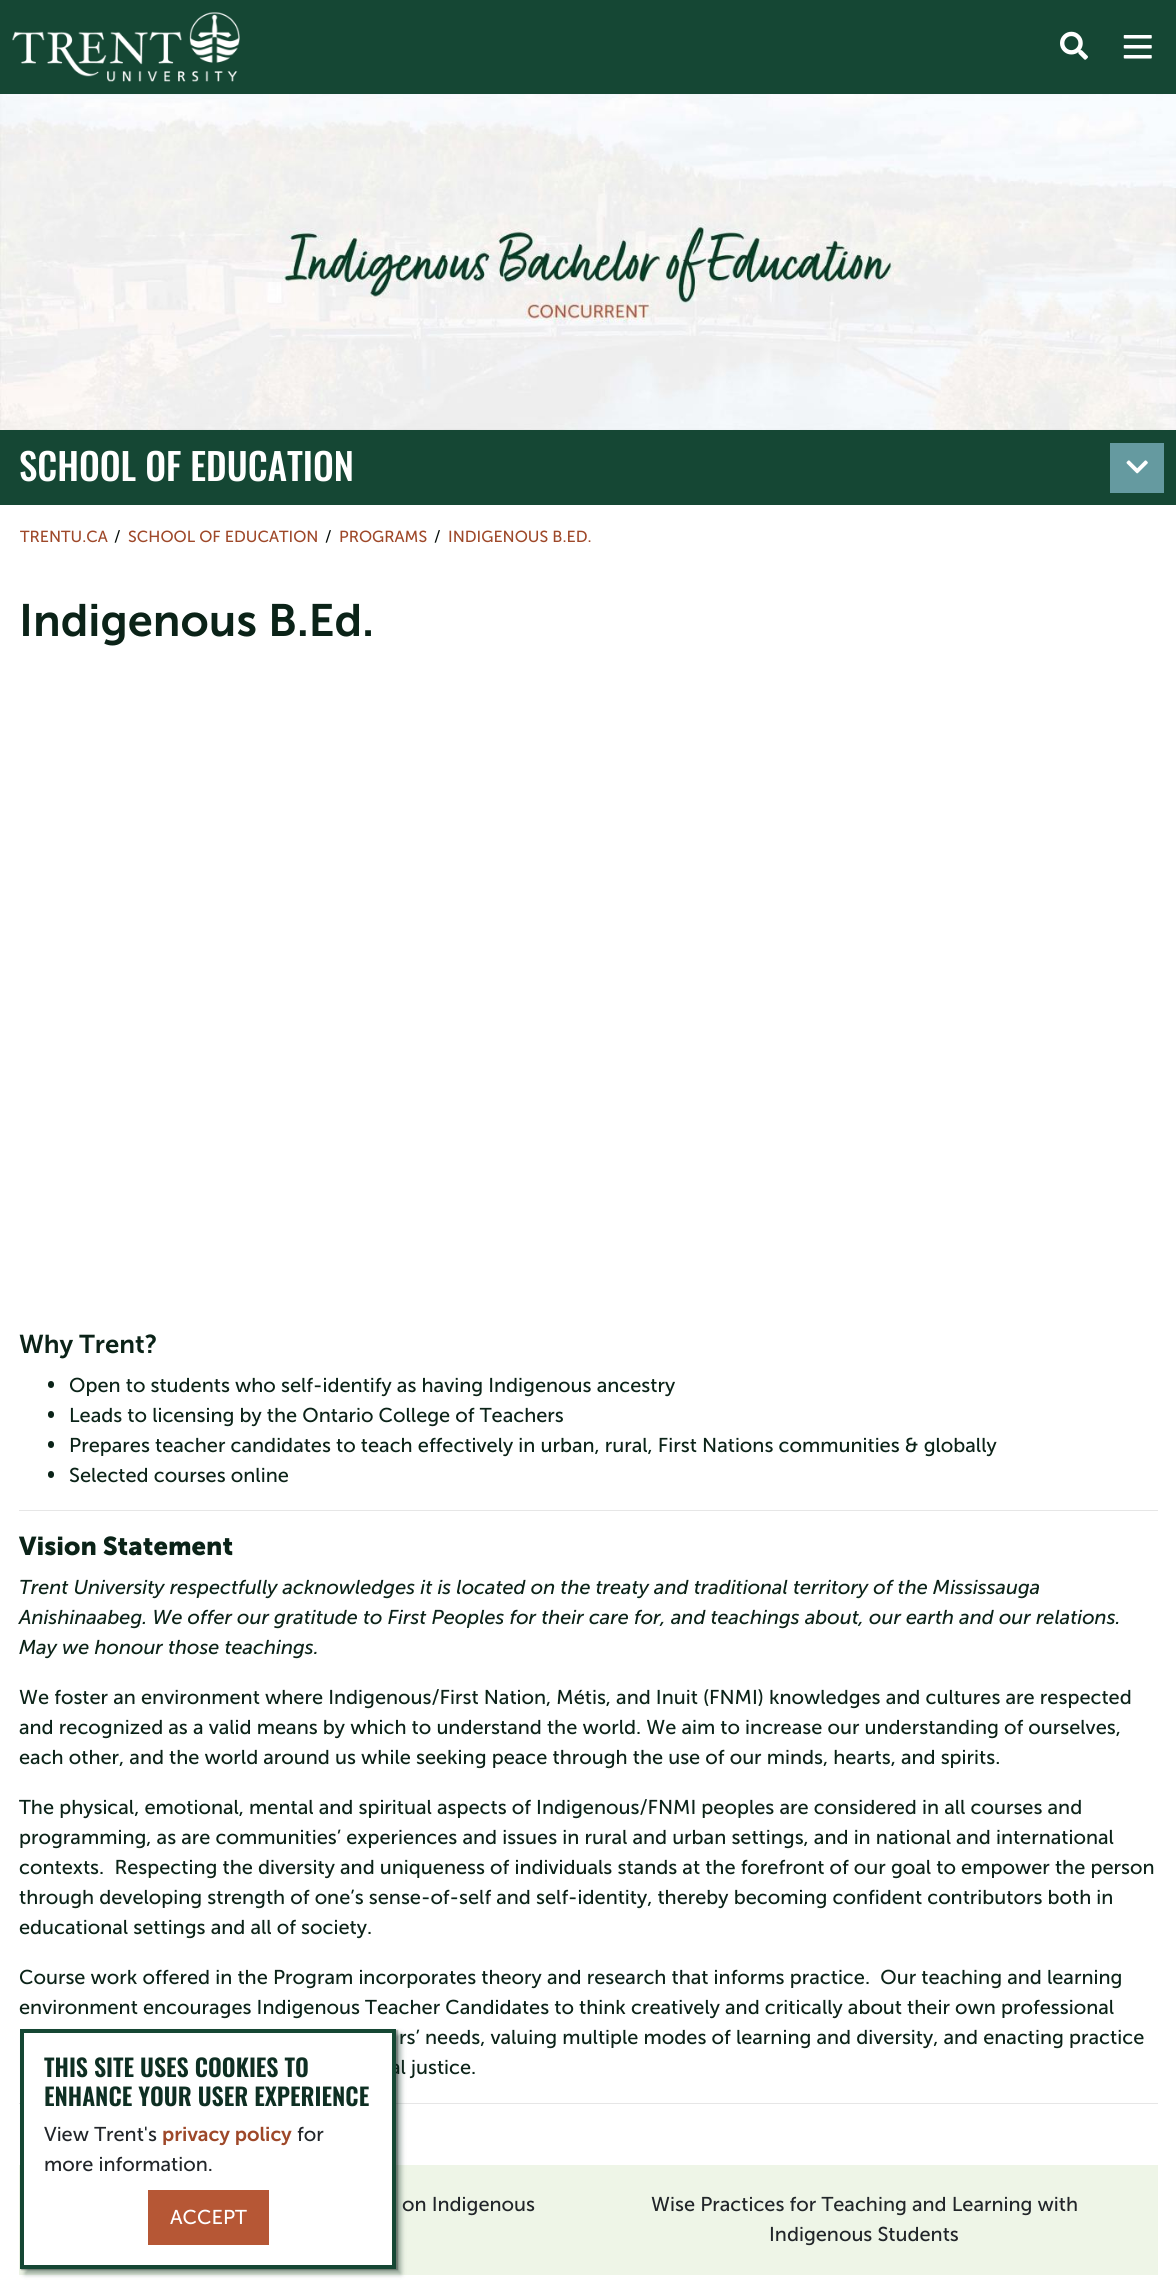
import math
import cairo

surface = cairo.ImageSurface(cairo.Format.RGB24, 1176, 2288)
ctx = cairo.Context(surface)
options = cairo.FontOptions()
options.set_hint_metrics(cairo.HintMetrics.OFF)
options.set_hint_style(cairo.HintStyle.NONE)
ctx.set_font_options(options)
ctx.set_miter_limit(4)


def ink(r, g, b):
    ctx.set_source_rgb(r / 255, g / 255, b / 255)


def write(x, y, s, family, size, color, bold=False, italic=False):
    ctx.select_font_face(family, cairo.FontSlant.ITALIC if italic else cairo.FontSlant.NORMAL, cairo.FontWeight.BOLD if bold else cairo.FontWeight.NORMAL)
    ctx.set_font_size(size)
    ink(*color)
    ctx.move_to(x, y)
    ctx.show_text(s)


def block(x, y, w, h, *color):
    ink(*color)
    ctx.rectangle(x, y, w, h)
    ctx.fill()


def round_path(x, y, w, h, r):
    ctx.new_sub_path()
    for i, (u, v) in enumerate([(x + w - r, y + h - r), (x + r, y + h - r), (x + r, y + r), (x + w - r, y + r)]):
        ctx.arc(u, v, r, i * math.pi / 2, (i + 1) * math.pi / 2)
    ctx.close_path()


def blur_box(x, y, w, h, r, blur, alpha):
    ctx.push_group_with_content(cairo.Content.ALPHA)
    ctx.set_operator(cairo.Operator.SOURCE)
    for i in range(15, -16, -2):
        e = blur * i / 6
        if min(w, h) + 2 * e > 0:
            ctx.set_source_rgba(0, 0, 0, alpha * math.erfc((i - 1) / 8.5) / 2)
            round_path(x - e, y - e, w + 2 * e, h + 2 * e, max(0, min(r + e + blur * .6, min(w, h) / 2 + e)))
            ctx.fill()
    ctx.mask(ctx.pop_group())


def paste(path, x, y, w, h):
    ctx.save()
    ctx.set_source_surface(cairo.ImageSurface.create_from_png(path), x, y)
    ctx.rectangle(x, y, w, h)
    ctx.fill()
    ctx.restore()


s1 = dict(family="Oswald Medium", size=37, color=(255, 255, 255))
s2 = dict(family="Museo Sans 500", size=16, color=(158, 72, 41))
s3 = dict(family="Museo Sans 500", size=16, color=(4, 12, 9))
s4 = dict(family="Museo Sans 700 SemiBold", size=45.25, color=(11, 35, 24))
s5 = dict(family="Museo Sans 700 SemiBold", size=25.75, color=(11, 35, 24))
s6 = dict(family="Museo Sans 500", size=20, color=(11, 35, 24))
s7 = dict(family="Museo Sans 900", size=25.75, color=(11, 35, 24), bold=True)
s8 = dict(family="Museo Sans 500", size=20, color=(11, 35, 24), italic=True)
s9 = dict(family="Museo Sans 500", size=20, color=(33, 37, 41))
s10 = dict(family="Oswald SemiBold", size=24, color=(14, 47, 35))
s11 = dict(family="Museo Sans 700 SemiBold", size=20, color=(158, 72, 41))
s12 = dict(family="Museo Sans 500", size=20, color=(255, 255, 255))

ink(255, 255, 255)
ctx.paint()
block(0, 0, 1176, 94, 21, 71, 52)
paste("pic1.png", 12, 12, 228, 70)
paste("pic2.png", 1060, 31, 28, 29)
paste("pic3.png", 1123, 35, 29, 24)
paste("pic4.png", 0, 94, 1176, 336)
block(0, 430, 1176, 75, 21, 71, 52)
write(19, 481, "SCHOOL OF EDUCATION", **s1)
block(1110, 443, 54, 50, 101, 154, 160)
paste("pic5.png", 1126, 460, 22, 14)
write(20, 542, "TRENTU.CA", **s2)
write(114, 542, "/", **s3)
write(128, 542, "SCHOOL OF EDUCATION", **s2)
write(325, 542, "/", **s3)
write(339, 542, "PROGRAMS", **s2)
write(434, 542, "/", **s3)
write(448, 542, "INDIGENOUS B.ED.", **s2)
write(19, 636, "Indigenous B.Ed.", **s4)
write(19, 1353, "Why Trent?", **s5)
round_path(48, 1381, 6, 7, 3)
ctx.fill()
write(69, 1392, "Open to students who self-identify as having Indigenous ancestry", **s6)
round_path(48, 1411, 6, 7, 3)
ctx.fill()
write(69, 1422, "Leads to licensing by the Ontario College of Teachers", **s6)
round_path(48, 1441, 6, 7, 3)
ctx.fill()
write(69, 1452, "Prepares teacher candidates to teach effectively in urban, rural, First Nations communities & globally", **s6)
round_path(48, 1471, 6, 7, 3)
ctx.fill()
write(69, 1482, "Selected courses online", **s6)
block(19, 1510, 1139, 1, 230, 230, 230)
write(19, 1555, "Vision Statement", **s7)
write(19, 1594, "Trent University respectfully acknowledges it is located on the treaty and traditional territory of the Mississauga", **s8)
write(19, 1624, "Anishinaabeg. We offer our gratitude to First Peoples for their care for, and teachings about, our earth and our relations.", **s8)
write(19, 1654, "May we honour those teachings.", **s8)
write(19, 1704, "We foster an environment where Indigenous/First Nation, Métis, and Inuit (FNMI) knowledges and cultures are respected", **s6)
write(19, 1734, "and recognized as a valid means by which to understand the world. We aim to increase our understanding of ourselves,", **s6)
write(19, 1764, "each other, and the world around us while seeking peace through the use of our minds, hearts, and spirits.", **s6)
write(19, 1814, "The physical, emotional, mental and spiritual aspects of Indigenous/FNMI peoples are considered in all courses and", **s6)
write(19, 1844, "programming, as are communities’ experiences and issues in rural and urban settings, and in national and international", **s6)
write(19, 1874, "contexts.  Respecting the diversity and uniqueness of individuals stands at the forefront of our goal to empower the person", **s6)
write(19, 1904, "through developing strength of one’s sense-of-self and self-identity, thereby becoming confident contributors both in", **s6)
write(19, 1934, "educational settings and all of society.", **s6)
write(19, 1984, "Course work offered in the Program incorporates theory and research that informs practice.  Our teaching and learning", **s6)
write(19, 2014, "environment encourages Indigenous Teacher Candidates to think creatively and critically about their own professional", **s6)
write(399, 2044, "rs’ needs, valuing multiple modes of learning and diversity, and enacting practice", **s6)
write(390, 2074, "al justice.", **s6)
block(19, 2103, 1139, 1, 230, 230, 230)
block(19, 2165, 1139, 110, 238, 245, 231)
write(402, 2211, "on Indigenous", **s9)
write(651, 2211, "Wise Practices for Teaching and Learning with", **s9)
write(769, 2241, "Indigenous Students", **s9)
ink(14, 47, 35)
blur_box(25, 2034, 376, 240, 0, 2.5, 0.4)
ink(0, 0, 0)
blur_box(21, 2030, 377, 240, 0, 0.5, 0.3)
ink(255, 255, 255)
ctx.rectangle(22, 2031, 372, 236)
ctx.fill_preserve()
ink(21, 71, 52)
ctx.set_line_width(4)
ctx.stroke()
write(44, 2077, "THIS SITE USES COOKIES TO", **s10)
write(44, 2106, "ENHANCE YOUR USER EXPERIENCE", **s10)
write(44, 2141, "View Trent's", **s9)
write(162, 2141, "privacy policy", **s11)
write(297, 2141, "for", **s9)
write(44, 2171, "more information.", **s9)
block(148, 2190, 121, 55, 182, 87, 53)
write(170, 2224, "ACCEPT", **s12)
surface.write_to_png("screenshot.png")
